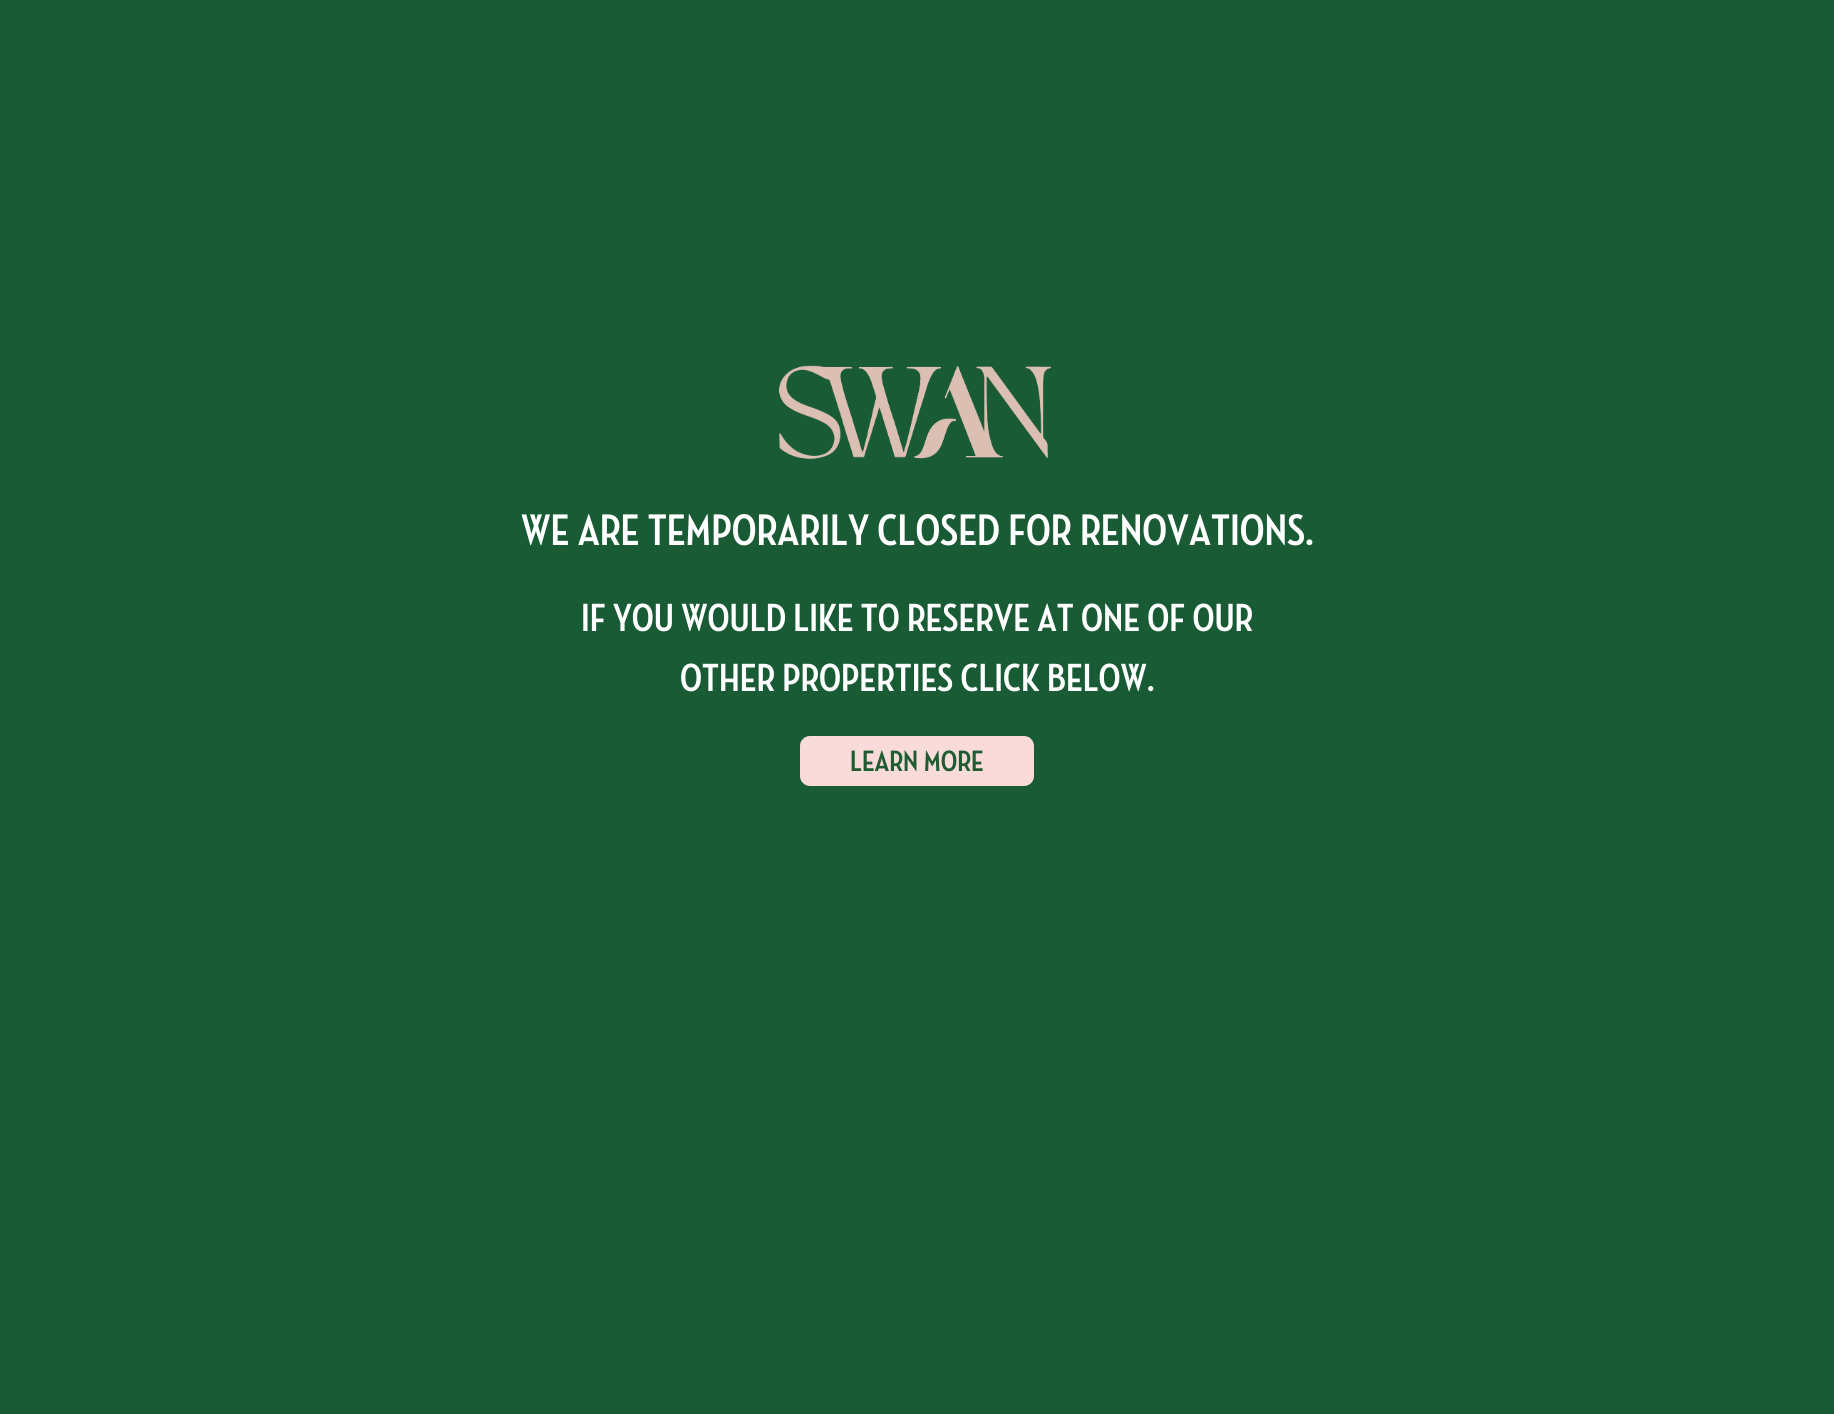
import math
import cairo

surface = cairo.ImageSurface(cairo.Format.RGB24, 1834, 1414)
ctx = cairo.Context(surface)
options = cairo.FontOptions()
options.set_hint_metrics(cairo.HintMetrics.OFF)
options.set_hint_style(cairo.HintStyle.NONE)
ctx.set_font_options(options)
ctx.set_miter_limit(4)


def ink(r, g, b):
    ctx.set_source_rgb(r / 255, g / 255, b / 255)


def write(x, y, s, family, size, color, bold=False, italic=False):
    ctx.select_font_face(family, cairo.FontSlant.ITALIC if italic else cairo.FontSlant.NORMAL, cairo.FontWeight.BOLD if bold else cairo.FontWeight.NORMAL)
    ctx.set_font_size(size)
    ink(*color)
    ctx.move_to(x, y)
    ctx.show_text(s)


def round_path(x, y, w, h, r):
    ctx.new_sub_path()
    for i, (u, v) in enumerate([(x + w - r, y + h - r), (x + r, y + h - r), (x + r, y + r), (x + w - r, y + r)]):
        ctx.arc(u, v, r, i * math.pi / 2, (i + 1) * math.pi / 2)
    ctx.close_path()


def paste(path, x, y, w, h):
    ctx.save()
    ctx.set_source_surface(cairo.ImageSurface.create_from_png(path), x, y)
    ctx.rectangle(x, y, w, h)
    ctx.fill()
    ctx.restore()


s1 = dict(family="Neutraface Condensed", size=45, color=(255, 255, 255), bold=True)
s2 = dict(family="Neutraface Condensed", size=40, color=(255, 255, 255), bold=True)
s3 = dict(family="Neutraface Condensed", size=30, color=(31, 92, 50), bold=True)

ink(25, 91, 53)
ctx.paint()
paste("pic1.png", 779, 365, 273, 94)
write(521, 545, "WE ARE TEMPORARILY CLOSED FOR RENOVATIONS.", **s1)
write(581, 631, "IF YOU WOULD LIKE TO RESERVE AT ONE OF OUR", **s2)
write(680, 691, "OTHER PROPERTIES CLICK BELOW.", **s2)
ink(249, 220, 218)
round_path(800, 736, 234, 50, 10)
ctx.fill()
write(850, 771, "LEARN MORE", **s3)
surface.write_to_png("screenshot.png")
